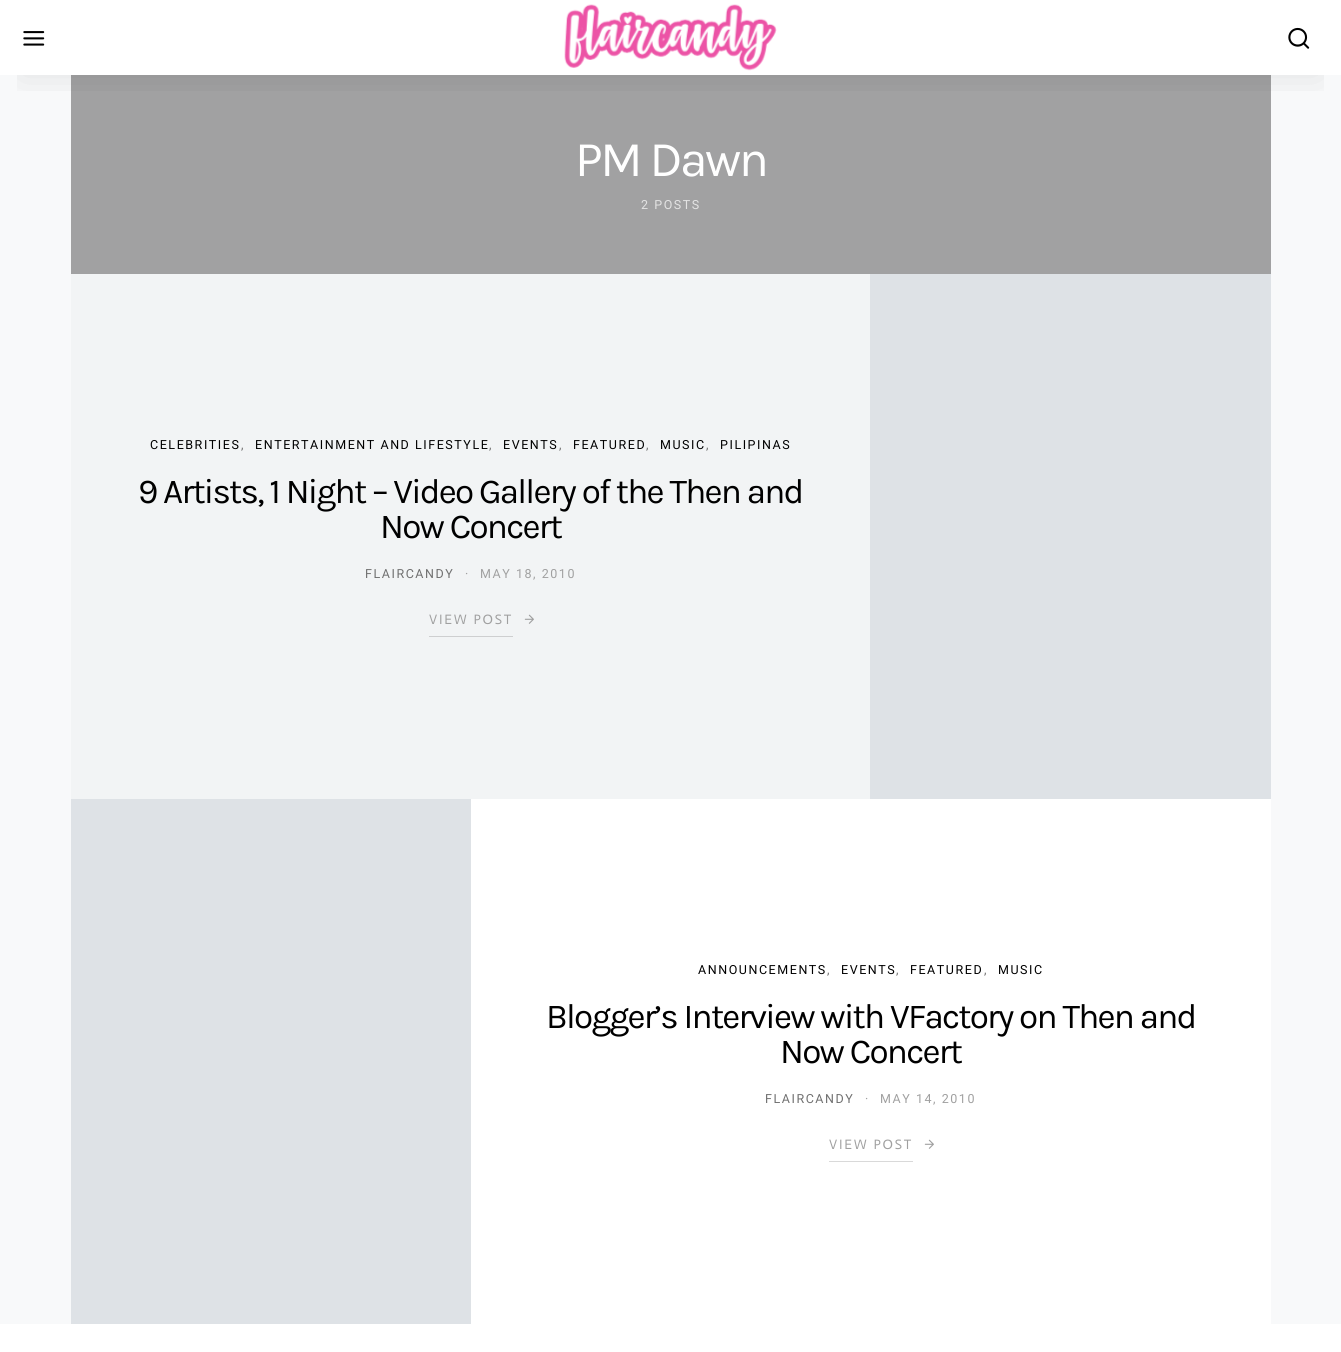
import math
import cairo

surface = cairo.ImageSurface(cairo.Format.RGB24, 1341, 1352)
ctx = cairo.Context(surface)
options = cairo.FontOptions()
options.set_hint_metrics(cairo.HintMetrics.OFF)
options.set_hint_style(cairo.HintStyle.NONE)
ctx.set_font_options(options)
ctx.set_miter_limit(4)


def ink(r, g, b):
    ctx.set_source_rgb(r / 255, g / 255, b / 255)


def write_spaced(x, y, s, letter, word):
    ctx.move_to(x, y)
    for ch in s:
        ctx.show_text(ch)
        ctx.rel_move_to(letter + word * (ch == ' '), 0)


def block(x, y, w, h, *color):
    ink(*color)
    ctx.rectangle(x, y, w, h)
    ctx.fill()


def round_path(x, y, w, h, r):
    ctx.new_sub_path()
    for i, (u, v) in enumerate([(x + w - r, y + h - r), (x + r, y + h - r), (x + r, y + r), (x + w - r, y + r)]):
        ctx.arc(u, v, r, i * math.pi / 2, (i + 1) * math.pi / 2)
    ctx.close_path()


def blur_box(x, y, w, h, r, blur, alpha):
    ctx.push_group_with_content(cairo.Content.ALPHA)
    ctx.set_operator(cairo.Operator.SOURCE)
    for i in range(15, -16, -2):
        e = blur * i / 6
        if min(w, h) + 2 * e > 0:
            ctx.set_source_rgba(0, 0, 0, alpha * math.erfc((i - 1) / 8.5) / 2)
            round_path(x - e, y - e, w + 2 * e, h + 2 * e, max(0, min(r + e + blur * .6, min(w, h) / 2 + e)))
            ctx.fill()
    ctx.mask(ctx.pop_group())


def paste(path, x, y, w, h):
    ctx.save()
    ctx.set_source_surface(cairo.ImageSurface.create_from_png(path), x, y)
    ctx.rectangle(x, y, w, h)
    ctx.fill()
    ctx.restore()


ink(248, 249, 250)
ctx.paint()
block(0, 0, 1341, 75, 255, 255, 255)
block(71, 75, 1200, 199, 161, 161, 162)
ctx.save()
ctx.rectangle(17, 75, 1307, 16)
ctx.clip()
ink(0, 0, 0)
blur_box(20, 40, 1301, 35, 0, 20, 0.1)
ctx.restore()
paste("pic1.png", 23, 31, 22, 15)
paste("pic2.png", 564, 4, 213, 67)
paste("pic3.png", 1288, 27, 22, 22)
ctx.select_font_face("Karla")
ctx.set_font_size(50)
ink(255, 255, 255)
write_spaced(575, 176, "PM Dawn", -2.5, 0)
ctx.select_font_face("Roboto")
ctx.set_font_size(12.5)
ink(227, 227, 227)
write_spaced(641, 209, "2 POSTS", 1.55, 0)
block(870, 274, 401, 525, 222, 226, 230)
block(71, 274, 799, 525, 242, 244, 245)
ink(0, 0, 0)
write_spaced(150, 449, "CELEBRITIES", 1.55, 0)
ink(112, 112, 112)
write_spaced(241, 449, ",", 1.55, 0)
ink(0, 0, 0)
write_spaced(255, 449, "ENTERTAINMENT AND LIFESTYLE", 1.55, 0)
ink(112, 112, 112)
write_spaced(489, 449, ",", 1.55, 0)
ink(0, 0, 0)
write_spaced(503, 449, "EVENTS", 1.55, 0)
ink(112, 112, 112)
write_spaced(559, 449, ",", 1.55, 0)
ink(0, 0, 0)
write_spaced(573, 449, "FEATURED", 1.55, 0)
ink(112, 112, 112)
write_spaced(646, 449, ",", 1.55, 0)
ink(0, 0, 0)
write_spaced(660, 449, "MUSIC", 1.55, 0)
ink(112, 112, 112)
write_spaced(706, 449, ",", 1.55, 0)
ink(0, 0, 0)
write_spaced(720, 449, "PILIPINAS", 1.55, 0)
ctx.select_font_face("Karla")
ctx.set_font_size(35)
write_spaced(138, 503, "9 Artists, 1 Night – Video Gallery of the Then and", -1.75, 0)
write_spaced(380, 538, "Now Concert", -1.75, 0)
ctx.select_font_face("Roboto")
ctx.set_font_size(12.5)
ink(112, 112, 112)
write_spaced(365, 578, "FLAIRCANDY", 1.55, 0)
ink(160, 160, 160)
write_spaced(465, 578, "·", 1.55, 0)
write_spaced(480, 578, "MAY 18, 2010", 1.55, 0)
block(429, 636, 84, 1, 206, 207, 208)
ctx.select_font_face("Actor")
ctx.set_font_size(13.75)
ink(160, 160, 160)
write_spaced(429, 624, "VIEW POST", 1.75, 0)
paste("pic4.png", 524, 614, 10, 10)
block(71, 799, 400, 525, 222, 226, 230)
block(471, 799, 800, 525, 255, 255, 255)
ctx.select_font_face("Roboto")
ctx.set_font_size(12.5)
ink(0, 0, 0)
write_spaced(698, 974, "ANNOUNCEMENTS", 1.55, 0)
ink(112, 112, 112)
write_spaced(827, 974, ",", 1.55, 0)
ink(0, 0, 0)
write_spaced(841, 974, "EVENTS", 1.55, 0)
ink(112, 112, 112)
write_spaced(896, 974, ",", 1.55, 0)
ink(0, 0, 0)
write_spaced(910, 974, "FEATURED", 1.55, 0)
ink(112, 112, 112)
write_spaced(984, 974, ",", 1.55, 0)
ink(0, 0, 0)
write_spaced(998, 974, "MUSIC", 1.55, 0)
ctx.select_font_face("Karla")
ctx.set_font_size(35)
write_spaced(546, 1028, "Blogger’s Interview with VFactory on Then and", -1.75, 0)
write_spaced(780, 1063, "Now Concert", -1.75, 0)
ctx.select_font_face("Roboto")
ctx.set_font_size(12.5)
ink(112, 112, 112)
write_spaced(765, 1103, "FLAIRCANDY", 1.55, 0)
ink(160, 160, 160)
write_spaced(865, 1103, "·", 1.55, 0)
write_spaced(880, 1103, "MAY 14, 2010", 1.55, 0)
block(829, 1161, 84, 1, 217, 217, 217)
ctx.select_font_face("Actor")
ctx.set_font_size(13.75)
ink(160, 160, 160)
write_spaced(829, 1149, "VIEW POST", 1.75, 0)
paste("pic5.png", 924, 1139, 10, 10)
block(0, 1324, 1341, 28, 255, 255, 255)
surface.write_to_png("screenshot.png")
